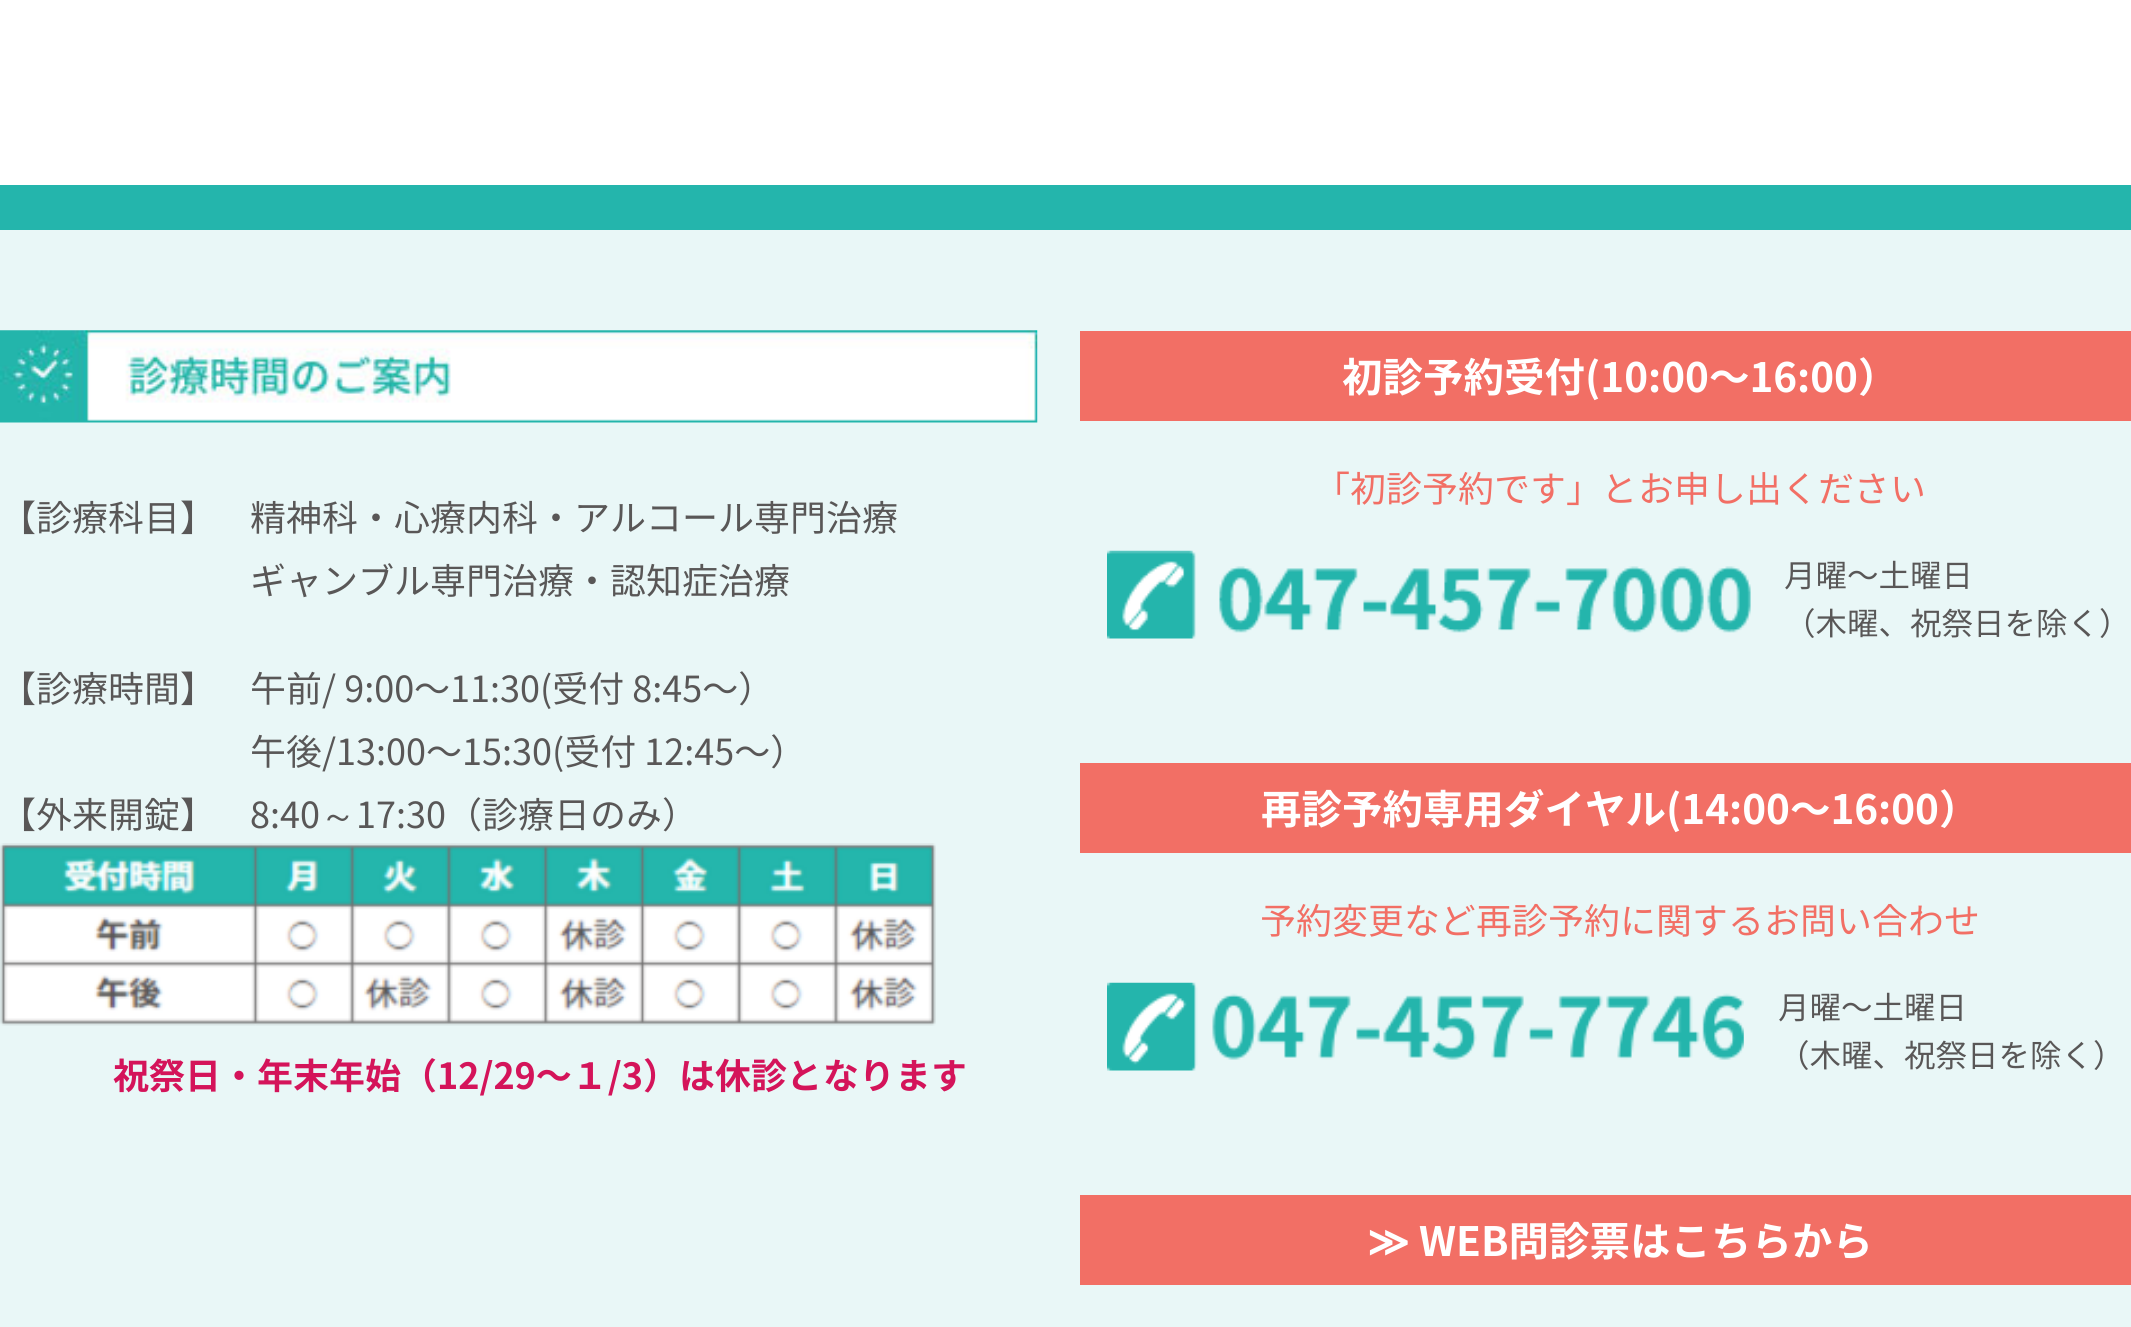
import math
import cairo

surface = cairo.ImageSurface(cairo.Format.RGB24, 2131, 1327)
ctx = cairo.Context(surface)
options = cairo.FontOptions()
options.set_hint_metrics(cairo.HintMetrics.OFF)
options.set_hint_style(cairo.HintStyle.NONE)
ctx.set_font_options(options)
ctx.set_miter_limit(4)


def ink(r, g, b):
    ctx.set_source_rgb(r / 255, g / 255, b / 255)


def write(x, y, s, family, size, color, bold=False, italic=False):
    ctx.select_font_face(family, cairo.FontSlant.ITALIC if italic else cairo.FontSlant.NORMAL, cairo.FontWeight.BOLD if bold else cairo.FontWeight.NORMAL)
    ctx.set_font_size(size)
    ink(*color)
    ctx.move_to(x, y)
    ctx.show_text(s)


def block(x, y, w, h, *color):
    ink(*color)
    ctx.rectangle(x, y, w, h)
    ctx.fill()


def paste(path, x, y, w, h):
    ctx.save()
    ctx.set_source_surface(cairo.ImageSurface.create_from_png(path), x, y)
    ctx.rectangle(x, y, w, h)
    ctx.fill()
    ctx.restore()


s1 = dict(family="Noto Sans JP", size=36, color=(89, 87, 87))
s2 = dict(family="WenQuanYi Zen Hei Medium", size=36, color=(89, 87, 87))
s3 = dict(family="Noto Sans JP", size=36, color=(212, 20, 90), bold=True)
s4 = dict(family="Noto Sans JP", size=40.5, color=(255, 255, 255), bold=True)
s5 = dict(family="Noto Sans JP", size=36, color=(242, 111, 101))
s6 = dict(family="Noto Sans JP", size=31.5, color=(89, 87, 87))
s7 = dict(family="DejaVu Sans", size=40.5, color=(255, 255, 255), bold=True)

ink(255, 255, 255)
ctx.paint()
block(0, 230, 2131, 1097, 233, 247, 247)
block(0, 185, 2131, 45, 36, 181, 172)
paste("pic1.png", 0, 330, 1038, 93)
write(0, 531, "【診療科目】", **s1)
write(250, 531, "精神科・心療内科・アルコール専門治療", **s1)
write(250, 594, "ギャンブル専門治療・認知症治療", **s1)
write(0, 702, "【診療時間】", **s1)
write(0, 828, "【外来開錠】", **s1)
write(250, 702, "午前/ 9:00〜11:30(受付 8:45〜）", **s1)
write(250, 765, "午後/13:00〜15:30(受付 12:45〜）", **s1)
write(250, 828, "8:40", **s1)
write(320, 828, "～", **s2)
write(356, 828, "17:30（診療日のみ）", **s1)
paste("pic2.png", 0, 843, 936, 183)
write(113, 1089, "祝祭日・年末年始（12/29〜１/3）は休診となります", **s3)
block(1080, 331, 1051, 90, 242, 111, 101)
write(1342, 392, "初診予約受付(10:00〜16:00）", **s4)
write(1314, 502, "「初診予約です」とお申し出ください", **s5)
paste("pic3.png", 1107, 550, 644, 89)
write(1784, 587, "月曜〜土曜日", **s6)
write(1784, 635, "（木曜、祝祭日を除く）", **s6)
block(1080, 763, 1051, 90, 242, 111, 101)
write(1261, 824, "再診予約専用ダイヤル(14:00〜16:00）", **s4)
write(1260, 934, "予約変更など再診予約に関するお問い合わせ", **s5)
paste("pic4.png", 1107, 982, 637, 89)
write(1778, 1019, "月曜〜土曜日", **s6)
write(1778, 1067, "（木曜、祝祭日を除く）", **s6)
block(1080, 1195, 1051, 90, 242, 111, 101)
write(1367, 1256, "≫", **s7)
write(1419, 1256, "WEB問診票はこちらから", **s4)
surface.write_to_png("screenshot.png")
